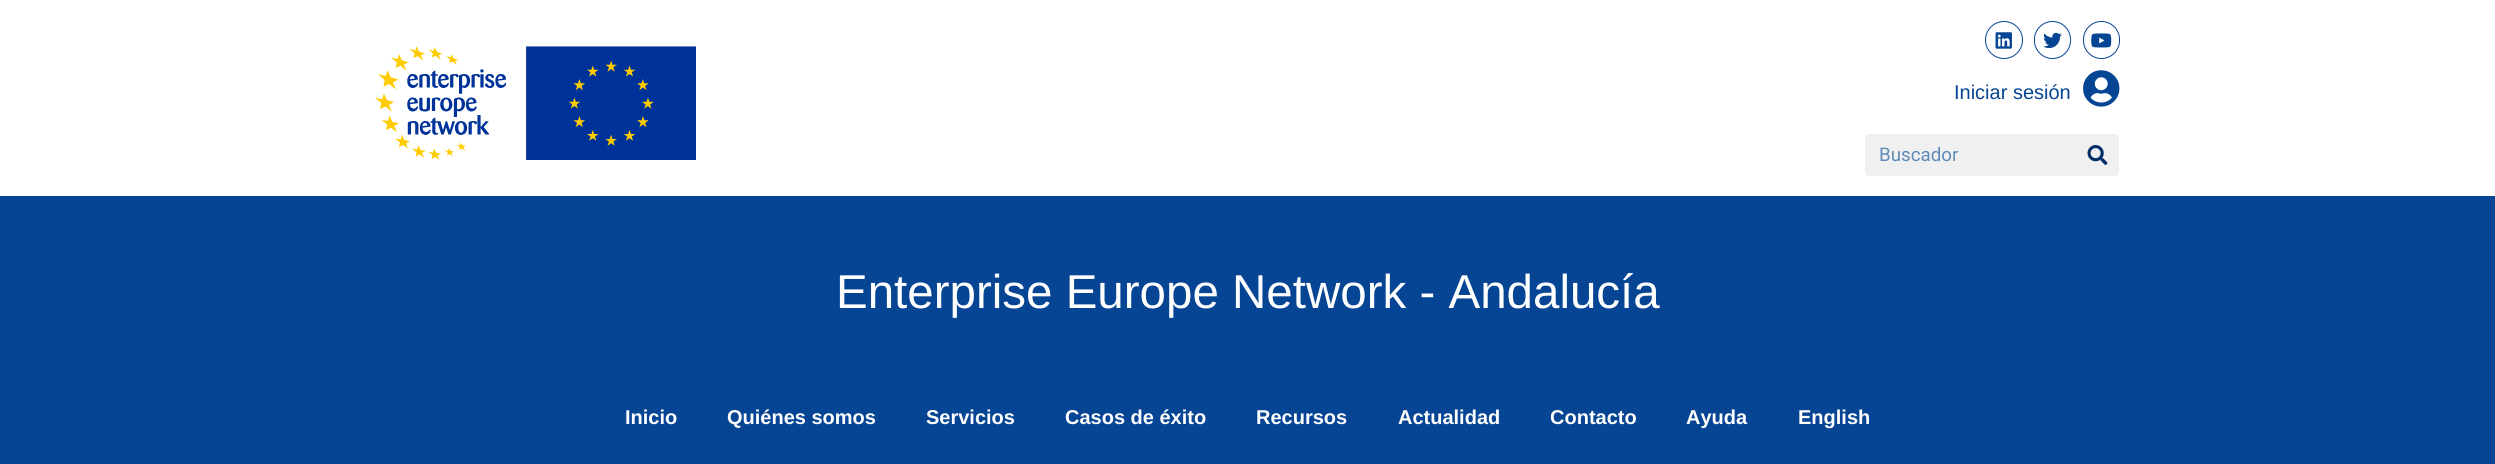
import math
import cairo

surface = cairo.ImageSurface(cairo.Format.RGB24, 2495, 464)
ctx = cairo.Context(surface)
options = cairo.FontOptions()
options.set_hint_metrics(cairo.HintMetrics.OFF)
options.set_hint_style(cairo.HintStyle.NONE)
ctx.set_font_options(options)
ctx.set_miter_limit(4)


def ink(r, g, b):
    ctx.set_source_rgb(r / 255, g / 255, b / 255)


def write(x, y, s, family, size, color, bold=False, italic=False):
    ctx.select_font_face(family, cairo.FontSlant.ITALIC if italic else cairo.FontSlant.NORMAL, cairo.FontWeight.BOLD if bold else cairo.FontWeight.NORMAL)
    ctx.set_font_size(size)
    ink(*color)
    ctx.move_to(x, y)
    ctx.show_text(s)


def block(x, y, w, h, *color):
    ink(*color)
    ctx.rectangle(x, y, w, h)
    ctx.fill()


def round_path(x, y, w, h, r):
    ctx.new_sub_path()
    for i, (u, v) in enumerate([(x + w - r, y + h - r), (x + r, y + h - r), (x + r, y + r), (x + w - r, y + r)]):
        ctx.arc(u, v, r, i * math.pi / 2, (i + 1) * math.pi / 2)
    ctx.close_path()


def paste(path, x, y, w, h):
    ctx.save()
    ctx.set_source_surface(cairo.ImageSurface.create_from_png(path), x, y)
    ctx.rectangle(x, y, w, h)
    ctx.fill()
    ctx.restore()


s1 = dict(family="Liberation Sans", size=20, color=(6, 68, 148))
s2 = dict(family="Roboto", size=18.75, color=(96, 138, 184))
s3 = dict(family="Liberation Sans", size=47.5, color=(255, 255, 255))
s4 = dict(family="Liberation Sans", size=20, color=(255, 255, 255), bold=True)

ink(255, 255, 255)
ctx.paint()
paste("pic1.png", 375, 46, 321, 114)
ctx.arc(2004, 40, 18.5, 0, 2 * math.pi)
ink(6, 68, 148)
ctx.set_line_width(1)
ctx.stroke()
paste("pic2.png", 1995, 32, 17, 17)
round_path(2034.5, 21.5, 36, 37, 18)
ctx.stroke()
paste("pic3.png", 2043, 32, 19, 17)
round_path(2083.5, 21.5, 36, 37, 18)
ctx.stroke()
paste("pic4.png", 2091, 33, 21, 15)
write(1954, 99, "Iniciar sesión", **s1)
paste("pic5.png", 2083, 70, 37, 37)
ink(240, 240, 240)
round_path(1865, 134, 254, 42, 4)
ctx.fill()
write(1879, 161, "Buscador", **s2)
paste("pic6.png", 2087, 145, 21, 20)
block(0, 196, 2495, 268, 6, 68, 148)
write(836, 308, "Enterprise Europe Network - Andalucía", **s3)
write(625, 424, "Inicio", **s4)
write(727, 424, "Quiénes somos", **s4)
write(926, 424, "Servicios", **s4)
write(1065, 424, "Casos de éxito", **s4)
write(1256, 424, "Recursos", **s4)
write(1398, 424, "Actualidad", **s4)
write(1550, 424, "Contacto", **s4)
write(1686, 424, "Ayuda", **s4)
write(1798, 424, "English", **s4)
surface.write_to_png("screenshot.png")
